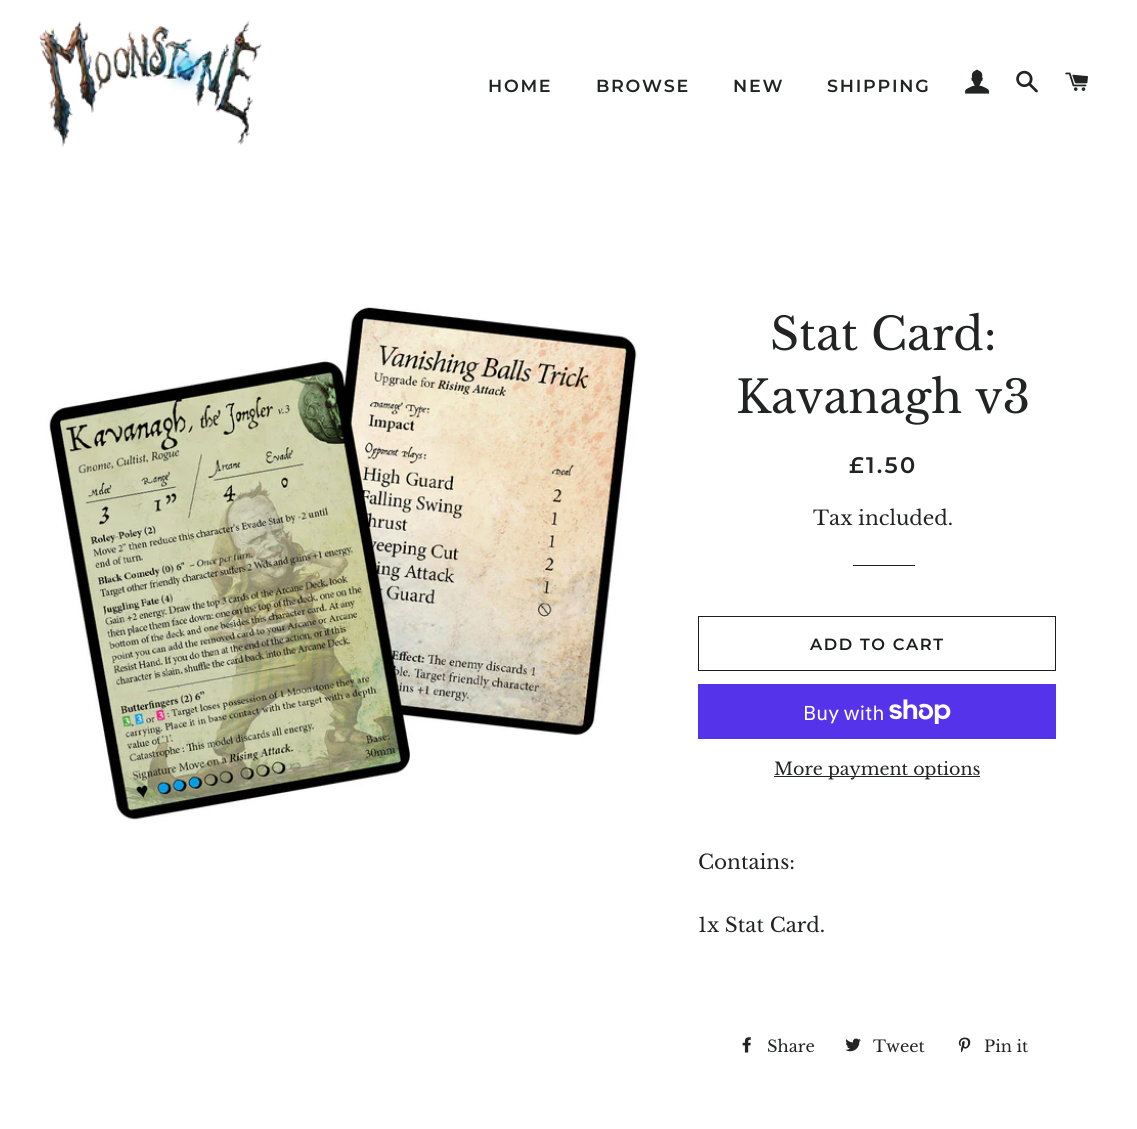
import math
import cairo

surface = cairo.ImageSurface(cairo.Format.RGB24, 1137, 1129)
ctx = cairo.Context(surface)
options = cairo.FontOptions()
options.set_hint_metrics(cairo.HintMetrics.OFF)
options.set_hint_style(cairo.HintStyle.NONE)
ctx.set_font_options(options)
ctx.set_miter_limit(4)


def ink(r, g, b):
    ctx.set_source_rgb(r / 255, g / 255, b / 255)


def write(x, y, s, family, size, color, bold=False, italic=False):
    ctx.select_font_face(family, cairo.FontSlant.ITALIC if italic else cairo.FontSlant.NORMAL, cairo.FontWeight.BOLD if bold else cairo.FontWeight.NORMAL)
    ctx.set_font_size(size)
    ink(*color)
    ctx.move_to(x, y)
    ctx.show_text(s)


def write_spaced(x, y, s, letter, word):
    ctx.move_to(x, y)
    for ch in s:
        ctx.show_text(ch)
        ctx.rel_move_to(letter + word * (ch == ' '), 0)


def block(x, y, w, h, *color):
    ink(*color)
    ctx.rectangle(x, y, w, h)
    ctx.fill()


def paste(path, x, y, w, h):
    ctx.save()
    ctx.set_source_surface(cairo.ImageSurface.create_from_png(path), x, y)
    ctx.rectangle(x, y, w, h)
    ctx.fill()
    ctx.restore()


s1 = dict(family="Libre Baskerville", size=45, color=(34, 35, 35))
s2 = dict(family="Libre Baskerville", size=20, color=(34, 35, 35))
s3 = dict(family="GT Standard", size=20, color=(255, 255, 255))
s4 = dict(family="Libre Baskerville", size=17.5, color=(34, 35, 35))
s5 = dict(family="Libre Baskerville", size=16.25, color=(34, 35, 35))

ink(255, 255, 255)
ctx.paint()
paste("pic1.png", 39, 20, 223, 128)
ctx.select_font_face("Montserrat SemiBold")
ctx.set_font_size(17.5)
ink(34, 35, 35)
write_spaced(488, 92, "HOME", 1.75, 0)
write_spaced(596, 92, "BROWSE", 1.75, 0)
write_spaced(733, 92, "NEW", 1.75, 0)
write_spaced(827, 92, "SHIPPING", 1.75, 0)
paste("pic2.png", 965, 69, 25, 25)
paste("pic3.png", 1016, 70, 22, 23)
paste("pic4.png", 1065, 72, 23, 19)
paste("pic5.png", 38, 248, 603, 603)
write(770, 350, "Stat Card:", **s1)
write(736, 413, "Kavanagh v3", **s1)
ctx.select_font_face("Montserrat SemiBold")
ctx.set_font_size(22.5)
write_spaced(849, 473, "£1.50", 2.25, 0)
write(813, 525, "Tax included.", **s2)
block(853, 565, 62, 1, 28, 29, 29)
ctx.rectangle(698.5, 616.5, 357, 54)
ctx.set_line_width(1)
ctx.stroke()
ctx.select_font_face("Montserrat SemiBold")
ctx.set_font_size(16.25)
write_spaced(810, 650, "ADD TO CART", 1.6, 0)
block(698, 684, 358, 55, 84, 51, 235)
write(803, 720, "Buy with", **s3)
paste("pic6.png", 889, 699, 62, 25)
block(774, 776, 206, 1, 34, 35, 35)
write(774, 775, "More payment options", **s4)
write(698, 869, "Contains:", **s2)
write(698, 932, "1x Stat Card.", **s2)
paste("pic7.png", 742, 1037, 9, 16)
write(767, 1052, "Share", **s5)
paste("pic8.png", 845, 1038, 16, 14)
write(873, 1052, "Tweet", **s5)
paste("pic9.png", 958, 1037, 13, 16)
write(984, 1052, "Pin it", **s5)
surface.write_to_png("screenshot.png")
